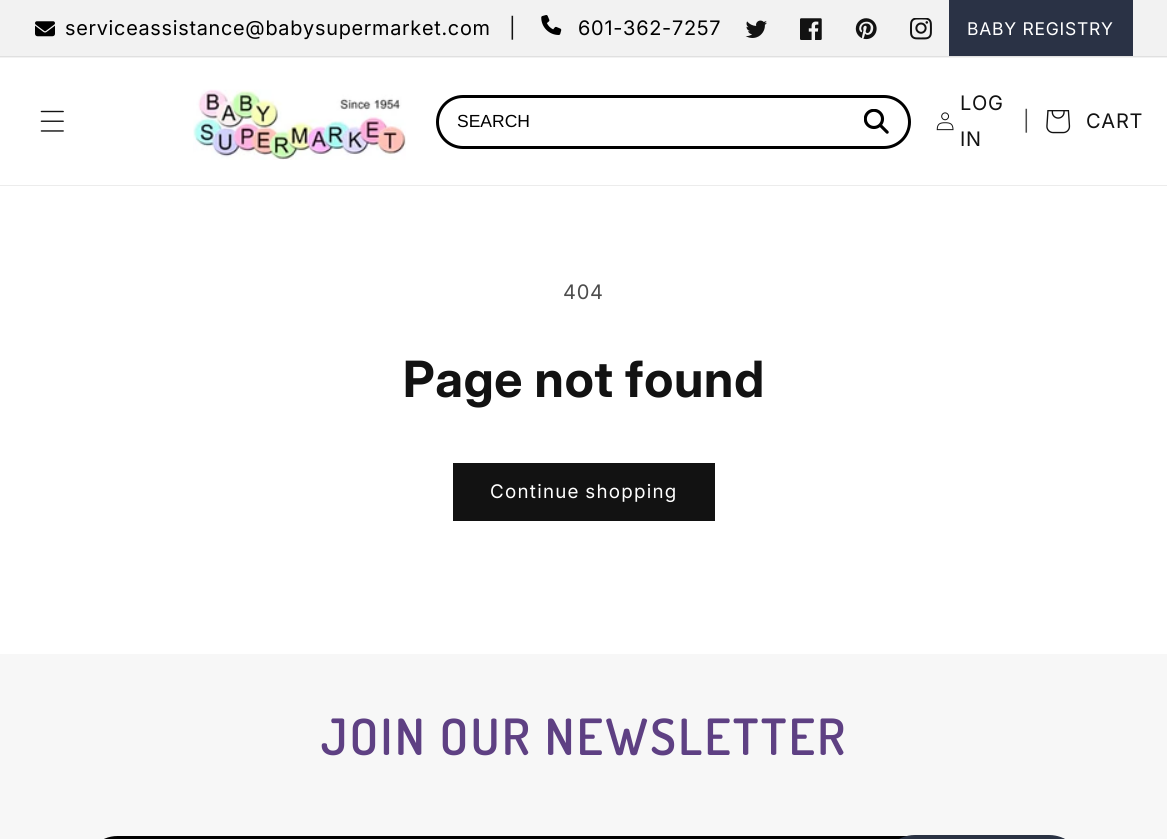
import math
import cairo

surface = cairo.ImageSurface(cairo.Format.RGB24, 1167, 839)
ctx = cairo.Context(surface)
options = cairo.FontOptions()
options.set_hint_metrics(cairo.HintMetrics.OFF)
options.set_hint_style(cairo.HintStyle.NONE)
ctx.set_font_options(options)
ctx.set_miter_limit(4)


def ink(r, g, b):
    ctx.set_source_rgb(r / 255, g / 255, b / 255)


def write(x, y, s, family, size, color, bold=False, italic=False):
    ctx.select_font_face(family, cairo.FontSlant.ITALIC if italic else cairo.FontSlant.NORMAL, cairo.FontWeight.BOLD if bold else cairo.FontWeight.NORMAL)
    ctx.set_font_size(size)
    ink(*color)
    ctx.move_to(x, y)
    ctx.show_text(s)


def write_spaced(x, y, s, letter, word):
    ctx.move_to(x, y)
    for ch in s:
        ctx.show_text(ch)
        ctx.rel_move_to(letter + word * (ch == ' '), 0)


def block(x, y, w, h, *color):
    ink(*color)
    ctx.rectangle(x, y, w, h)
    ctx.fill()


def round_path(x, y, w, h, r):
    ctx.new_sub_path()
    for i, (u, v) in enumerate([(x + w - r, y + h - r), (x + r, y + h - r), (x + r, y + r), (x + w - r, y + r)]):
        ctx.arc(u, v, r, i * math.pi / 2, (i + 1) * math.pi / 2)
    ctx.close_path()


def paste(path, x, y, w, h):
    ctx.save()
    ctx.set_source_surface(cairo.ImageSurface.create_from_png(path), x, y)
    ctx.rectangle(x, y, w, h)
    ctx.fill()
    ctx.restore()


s1 = dict(family="Liberation Sans", size=17.5, color=(0, 0, 0))

ink(255, 255, 255)
ctx.paint()
block(0, 0, 1167, 58, 242, 242, 242)
block(0, 56, 1167, 1, 224, 224, 224)
paste("pic1.png", 35, 21, 20, 16)
ctx.select_font_face("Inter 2")
ctx.set_font_size(20)
ink(0, 0, 0)
write_spaced(65, 35, "serviceassistance@babysupermarket.com", 0.75, 0)
ctx.select_font_face("Inter")
ink(18, 18, 18)
write_spaced(509, 35, "|", 0.75, 0)
paste("pic2.png", 541, 15, 21, 20)
ctx.select_font_face("Inter 2")
ink(0, 0, 0)
write_spaced(578, 35, "601-362-7257", 0.75, 0)
paste("pic3.png", 745, 20, 22, 18)
paste("pic4.png", 800, 18, 22, 22)
paste("pic5.png", 855, 18, 22, 22)
paste("pic6.png", 910, 18, 22, 22)
block(949, 0, 184, 56, 42, 50, 69)
ctx.select_font_face("Inter")
ctx.set_font_size(17.5)
ink(255, 255, 255)
write_spaced(967, 35, "BABY REGISTRY", 0.75, 0)
block(0, 185, 1167, 1, 236, 236, 236)
paste("pic7.png", 40, 110, 24, 22)
paste("pic8.png", 193, 89, 213, 71)
round_path(437.5, 96.5, 472, 51, 25.5)
ink(0, 0, 0)
ctx.set_line_width(3)
ctx.stroke()
write(457, 127, "SEARCH", **s1)
paste("pic9.png", 864, 109, 25, 25)
paste("pic10.png", 936, 112, 18, 19)
ctx.select_font_face("Inter")
ctx.set_font_size(20)
ink(18, 18, 18)
write_spaced(960, 110, "LOG", 0.75, 0)
ctx.select_font_face("Inter 2")
write_spaced(960, 146, "IN", 0.75, 0)
ink(77, 77, 77)
write_spaced(1023, 128, "|", 0.75, 0)
paste("pic11.png", 1046, 110, 25, 24)
ctx.select_font_face("Inter")
ink(18, 18, 18)
write_spaced(1086, 128, "CART", 0.75, 0)
ink(77, 77, 77)
write_spaced(563, 299, "404", 0.75, 0)
ctx.select_font_face("Inter", cairo.FontSlant.NORMAL, cairo.FontWeight.BOLD)
ctx.set_font_size(50)
ink(18, 18, 18)
write_spaced(403, 397, "Page not found", 0.75, 0)
block(453, 463, 262, 58, 18, 18, 18)
ctx.select_font_face("Inter")
ctx.set_font_size(18.75)
ink(255, 255, 255)
write_spaced(490, 498, "Continue shopping", 1.25, -1)
block(0, 654, 1167, 185, 247, 247, 247)
ctx.select_font_face("Dosis SemiBold")
ctx.set_font_size(50)
ink(94, 64, 131)
write_spaced(321, 755, "JOIN OUR NEWSLETTER", 2.5, 0)
round_path(86.5, 837.5, 995, 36, 31)
ink(0, 0, 0)
ctx.stroke()
ink(42, 50, 67)
round_path(881, 835, 202, 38, 34)
ctx.fill()
surface.write_to_png("screenshot.png")
